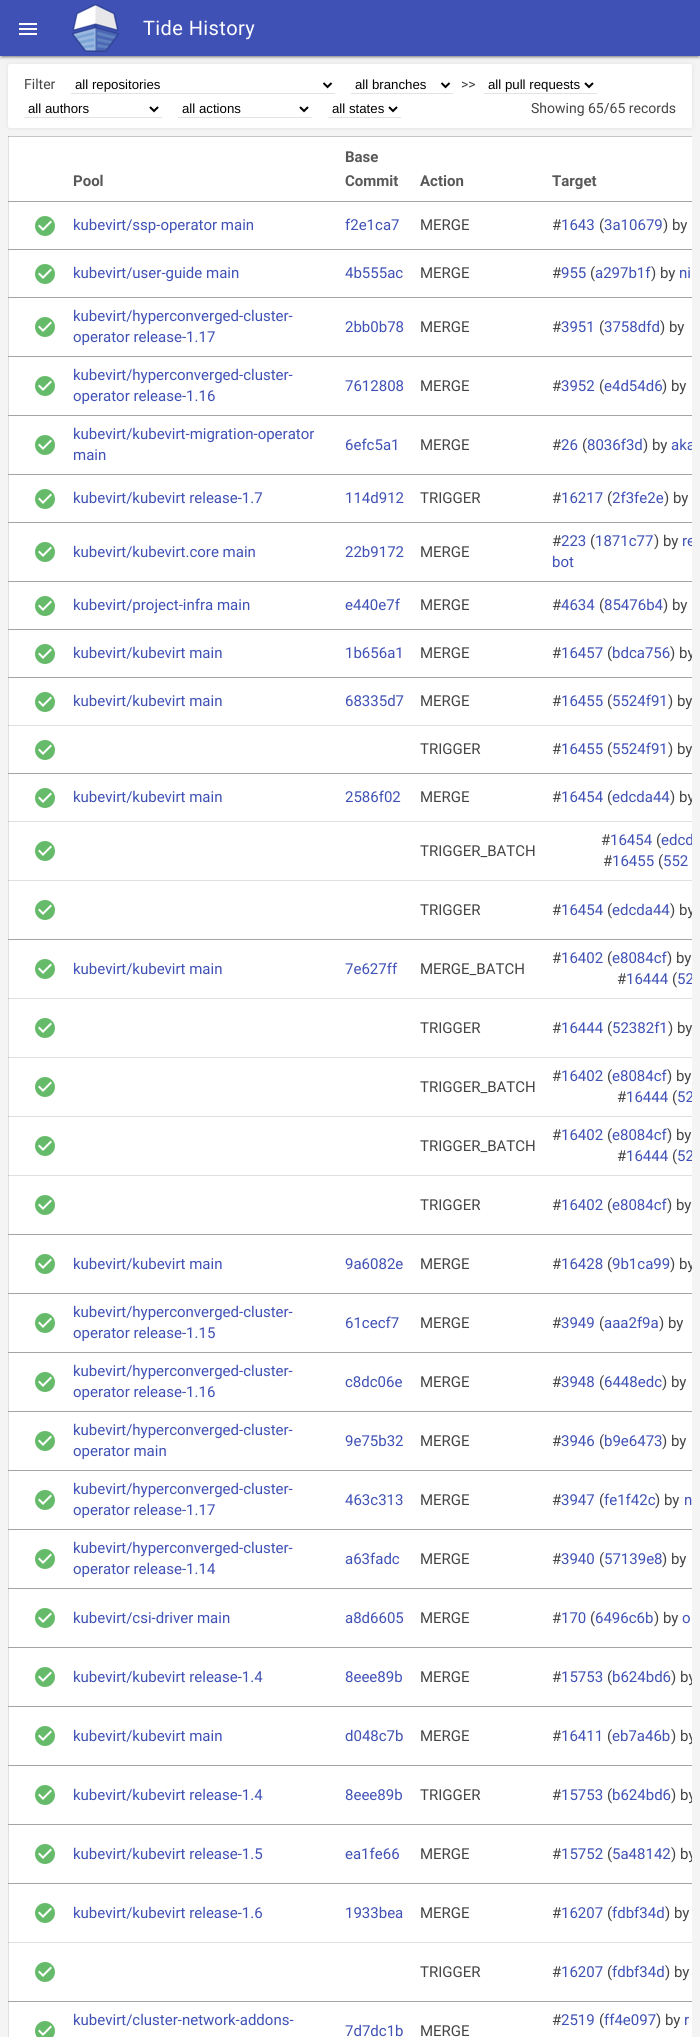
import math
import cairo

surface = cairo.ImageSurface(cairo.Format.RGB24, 700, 2037)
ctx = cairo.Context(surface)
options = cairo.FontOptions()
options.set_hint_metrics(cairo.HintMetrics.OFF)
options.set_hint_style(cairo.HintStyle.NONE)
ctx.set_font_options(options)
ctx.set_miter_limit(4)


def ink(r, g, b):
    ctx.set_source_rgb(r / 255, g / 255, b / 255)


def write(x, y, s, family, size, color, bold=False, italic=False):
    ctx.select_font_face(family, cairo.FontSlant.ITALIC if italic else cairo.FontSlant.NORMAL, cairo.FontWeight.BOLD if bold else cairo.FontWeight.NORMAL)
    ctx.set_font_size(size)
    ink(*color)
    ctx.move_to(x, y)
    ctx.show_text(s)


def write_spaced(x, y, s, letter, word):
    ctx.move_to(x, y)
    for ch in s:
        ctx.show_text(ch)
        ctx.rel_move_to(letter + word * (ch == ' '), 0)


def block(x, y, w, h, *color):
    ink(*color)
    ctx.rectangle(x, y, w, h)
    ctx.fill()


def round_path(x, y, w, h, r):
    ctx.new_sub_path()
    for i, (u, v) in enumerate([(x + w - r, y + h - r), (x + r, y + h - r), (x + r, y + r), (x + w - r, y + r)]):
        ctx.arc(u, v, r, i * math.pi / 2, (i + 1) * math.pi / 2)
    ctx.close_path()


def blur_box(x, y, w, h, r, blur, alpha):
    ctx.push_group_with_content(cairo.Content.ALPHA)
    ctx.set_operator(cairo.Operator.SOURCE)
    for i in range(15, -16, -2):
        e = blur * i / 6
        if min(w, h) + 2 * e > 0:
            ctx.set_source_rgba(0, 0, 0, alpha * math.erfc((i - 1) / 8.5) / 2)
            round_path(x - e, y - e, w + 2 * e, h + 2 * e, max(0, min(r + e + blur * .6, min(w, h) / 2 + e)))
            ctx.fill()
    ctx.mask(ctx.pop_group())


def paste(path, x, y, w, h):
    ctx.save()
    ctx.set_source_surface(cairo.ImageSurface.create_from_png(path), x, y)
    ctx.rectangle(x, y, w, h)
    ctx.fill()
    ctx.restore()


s1 = dict(family="Roboto", size=14, color=(68, 68, 68))
s2 = dict(family="Liberation Sans", size=13.25, color=(0, 0, 0))
s3 = dict(family="Roboto", size=15, color=(88, 88, 88), bold=True)
s4 = dict(family="Roboto", size=15, color=(63, 81, 181))
s5 = dict(family="Roboto", size=15, color=(68, 68, 68))

ink(244, 244, 244)
ctx.paint()
ink(224, 224, 224)
blur_box(8, 64, 684, 64, 2, 2, 1)
ink(255, 255, 255)
round_path(8, 64, 684, 64, 2)
ctx.fill()
ink(0, 0, 0)
blur_box(0, 1, 700, 56, 0, 2.5, 0.12)
blur_box(2, 5, 696, 52, 0, 0.5, 0.2)
blur_box(0, 2, 700, 56, 0, 1, 0.14)
block(0, 0, 700, 56, 63, 81, 181)
paste("pic1.png", 19, 23, 18, 12)
paste("pic2.png", 72, 4, 47, 48)
ctx.select_font_face("Roboto")
ctx.set_font_size(20)
ink(255, 255, 255)
write_spaced(143, 35, "Tide History", 0.4, 0)
write(24, 89, "Filter", **s1)
block(71, 93, 264, 1, 227, 227, 227)
ctx.new_path()
ctx.move_to(323.5, 83)
ctx.line_to(327.5, 87)
ctx.line_to(331.5, 83)
ink(0, 0, 0)
ctx.stroke()
write(75, 89, "all repositories", **s2)
block(351, 93, 102, 1, 227, 227, 227)
ctx.new_path()
ctx.move_to(441.5, 83)
ctx.line_to(445.5, 87)
ctx.line_to(449.5, 83)
ink(0, 0, 0)
ctx.stroke()
write(355, 89, "all branches", **s2)
write(461, 89, ">>", **s1)
block(484, 93, 113, 1, 227, 227, 227)
ctx.new_path()
ctx.move_to(585, 83)
ctx.line_to(589, 87)
ctx.line_to(593, 83)
ink(0, 0, 0)
ctx.stroke()
write(488, 89, "all pull requests", **s2)
block(24, 117, 138, 1, 227, 227, 227)
ctx.new_path()
ctx.move_to(150, 107)
ctx.line_to(154, 111)
ctx.line_to(158, 107)
ink(0, 0, 0)
ctx.stroke()
write(28, 113, "all authors", **s2)
block(178, 117, 134, 1, 227, 227, 227)
ctx.new_path()
ctx.move_to(300, 107)
ctx.line_to(304, 111)
ctx.line_to(308, 107)
ink(0, 0, 0)
ctx.stroke()
write(182, 113, "all actions", **s2)
block(328, 117, 73, 1, 227, 227, 227)
ctx.new_path()
ctx.move_to(389, 107)
ctx.line_to(393, 111)
ctx.line_to(397, 107)
ink(0, 0, 0)
ctx.stroke()
write(332, 113, "all states", **s2)
write(531, 113, "Showing 65/65 records", **s1)
block(9, 137, 683, 1900, 255, 255, 255)
block(8, 725, 684, 1, 224, 224, 224)
block(8, 821, 684, 1, 224, 224, 224)
block(8, 880, 684, 1, 224, 224, 224)
block(8, 998, 684, 1, 224, 224, 224)
block(8, 1057, 684, 1, 224, 224, 224)
block(8, 1116, 684, 1, 224, 224, 224)
block(8, 1175, 684, 1, 224, 224, 224)
block(8, 1942, 684, 1, 224, 224, 224)
block(8, 136, 1, 1901, 224, 224, 224)
block(8, 725, 1, 1, 197, 197, 197)
block(8, 821, 1, 1, 197, 197, 197)
block(8, 880, 1, 1, 197, 197, 197)
block(8, 998, 1, 1, 197, 197, 197)
block(8, 1057, 1, 1, 197, 197, 197)
block(8, 1116, 1, 1, 197, 197, 197)
block(8, 1175, 1, 1, 197, 197, 197)
block(8, 1942, 1, 1, 197, 197, 197)
block(8, 136, 684, 1, 197, 197, 197)
block(8, 136, 1, 1, 173, 173, 173)
write(73, 186, "Pool", **s3)
write(345, 162, "Base", **s3)
write(345, 186, "Commit", **s3)
write(420, 186, "Action", **s3)
write(552, 186, "Target", **s3)
block(8, 201, 684, 1, 164, 164, 164)
paste("pic3.png", 35, 216, 20, 20)
write(73, 230, "kubevirt/ssp-operator main", **s4)
write(345, 230, "f2e1ca7", **s4)
write(420, 230, "MERGE", **s5)
write(552, 230, "#", **s5)
write(561, 230, "1643", **s4)
write(599, 230, "(", **s5)
write(604, 230, "3a10679", **s4)
write(663, 230, ") by", **s5)
block(8, 249, 684, 1, 164, 164, 164)
paste("pic3.png", 35, 264, 20, 20)
write(73, 278, "kubevirt/user-guide main", **s4)
write(345, 278, "4b555ac", **s4)
write(420, 278, "MERGE", **s5)
write(552, 278, "#", **s5)
write(561, 278, "955", **s4)
write(590, 278, "(", **s5)
write(595, 278, "a297b1f", **s4)
write(651, 278, ") by", **s5)
write(679, 278, "ni", **s4)
block(8, 297, 684, 1, 164, 164, 164)
paste("pic3.png", 35, 317, 20, 20)
write(73, 321, "kubevirt/hyperconverged-cluster-", **s4)
write(73, 342, "operator release-1.17", **s4)
write(345, 332, "2bb0b78", **s4)
write(420, 332, "MERGE", **s5)
write(552, 332, "#", **s5)
write(561, 332, "3951", **s4)
write(599, 332, "(", **s5)
write(604, 332, "3758dfd", **s4)
write(660, 332, ") by", **s5)
block(8, 356, 684, 1, 164, 164, 164)
paste("pic3.png", 35, 376, 20, 20)
write(73, 380, "kubevirt/hyperconverged-cluster-", **s4)
write(73, 401, "operator release-1.16", **s4)
write(345, 391, "7612808", **s4)
write(420, 391, "MERGE", **s5)
write(552, 391, "#", **s5)
write(561, 391, "3952", **s4)
write(599, 391, "(", **s5)
write(604, 391, "e4d54d6", **s4)
write(662, 391, ") by", **s5)
block(8, 415, 684, 1, 164, 164, 164)
paste("pic3.png", 35, 435, 20, 20)
write(73, 439, "kubevirt/kubevirt-migration-operator", **s4)
write(73, 460, "main", **s4)
write(345, 450, "6efc5a1", **s4)
write(420, 450, "MERGE", **s5)
write(552, 450, "#", **s5)
write(561, 450, "26", **s4)
write(582, 450, "(", **s5)
write(587, 450, "8036f3d", **s4)
write(643, 450, ") by", **s5)
ctx.save()
ctx.rectangle(8, 136, 684, 1901)
ctx.clip()
write(671, 450, "aka", **s4)
ctx.restore()
block(8, 474, 684, 1, 164, 164, 164)
paste("pic3.png", 35, 489, 20, 20)
write(73, 503, "kubevirt/kubevirt release-1.7", **s4)
write(345, 503, "114d912", **s4)
write(420, 503, "TRIGGER", **s5)
write(552, 503, "#", **s5)
write(561, 503, "16217", **s4)
write(607, 503, "(", **s5)
write(612, 503, "2f3fe2e", **s4)
write(664, 503, ") by", **s5)
block(8, 522, 684, 1, 164, 164, 164)
paste("pic3.png", 35, 542, 20, 20)
write(73, 557, "kubevirt/kubevirt.core main", **s4)
write(345, 557, "22b9172", **s4)
write(420, 557, "MERGE", **s5)
write(552, 546, "#", **s5)
write(561, 546, "223", **s4)
write(590, 546, "(", **s5)
write(595, 546, "1871c77", **s4)
write(654, 546, ") by", **s5)
ctx.save()
ctx.rectangle(8, 136, 684, 1901)
ctx.clip()
write(682, 546, "re", **s4)
ctx.restore()
write(552, 567, "bot", **s4)
block(8, 581, 684, 1, 164, 164, 164)
paste("pic3.png", 35, 596, 20, 20)
write(73, 610, "kubevirt/project-infra main", **s4)
write(345, 610, "e440e7f", **s4)
write(420, 610, "MERGE", **s5)
write(552, 610, "#", **s5)
write(561, 610, "4634", **s4)
write(599, 610, "(", **s5)
write(604, 610, "85476b4", **s4)
write(663, 610, ") by", **s5)
block(8, 629, 684, 1, 164, 164, 164)
paste("pic3.png", 35, 644, 20, 20)
write(73, 658, "kubevirt/kubevirt main", **s4)
write(345, 658, "1b656a1", **s4)
write(420, 658, "MERGE", **s5)
write(552, 658, "#", **s5)
write(561, 658, "16457", **s4)
write(607, 658, "(", **s5)
write(612, 658, "bdca756", **s4)
write(670, 658, ")", **s5)
ctx.save()
ctx.rectangle(8, 136, 684, 1901)
ctx.clip()
write(679, 658, "by", **s5)
ctx.restore()
block(8, 677, 684, 1, 164, 164, 164)
paste("pic3.png", 35, 692, 20, 20)
write(73, 706, "kubevirt/kubevirt main", **s4)
write(345, 706, "68335d7", **s4)
write(420, 706, "MERGE", **s5)
write(552, 706, "#", **s5)
write(561, 706, "16455", **s4)
write(607, 706, "(", **s5)
write(612, 706, "5524f91", **s4)
write(668, 706, ") by", **s5)
paste("pic3.png", 35, 740, 20, 20)
write(420, 754, "TRIGGER", **s5)
write(552, 754, "#", **s5)
write(561, 754, "16455", **s4)
write(607, 754, "(", **s5)
write(612, 754, "5524f91", **s4)
write(668, 754, ") by", **s5)
block(8, 773, 684, 1, 164, 164, 164)
paste("pic3.png", 35, 788, 20, 20)
write(73, 802, "kubevirt/kubevirt main", **s4)
write(345, 802, "2586f02", **s4)
write(420, 802, "MERGE", **s5)
write(552, 802, "#", **s5)
write(561, 802, "16454", **s4)
write(607, 802, "(", **s5)
write(612, 802, "edcda44", **s4)
write(670, 802, ")", **s5)
ctx.save()
ctx.rectangle(8, 136, 684, 1901)
ctx.clip()
write(679, 802, "by", **s5)
ctx.restore()
paste("pic3.png", 35, 841, 20, 20)
write(420, 856, "TRIGGER_BATCH", **s5)
write(601, 845, "#", **s5)
write(610, 845, "16454", **s4)
write(656, 845, "(", **s5)
ctx.save()
ctx.rectangle(8, 136, 684, 1901)
ctx.clip()
write(661, 845, "edcd", **s4)
ctx.restore()
write(603, 866, "#", **s5)
write(612, 866, "16455", **s4)
write(658, 866, "(", **s5)
write(663, 866, "552", **s4)
paste("pic3.png", 35, 900, 20, 20)
write(420, 915, "TRIGGER", **s5)
write(552, 915, "#", **s5)
write(561, 915, "16454", **s4)
write(607, 915, "(", **s5)
write(612, 915, "edcda44", **s4)
write(670, 915, ")", **s5)
ctx.save()
ctx.rectangle(8, 136, 684, 1901)
ctx.clip()
write(679, 915, "by", **s5)
ctx.restore()
block(8, 939, 684, 1, 164, 164, 164)
paste("pic3.png", 35, 959, 20, 20)
write(73, 974, "kubevirt/kubevirt main", **s4)
write(345, 974, "7e627ff", **s4)
write(420, 974, "MERGE_BATCH", **s5)
write(552, 963, "#", **s5)
write(561, 963, "16402", **s4)
write(607, 963, "(", **s5)
write(612, 963, "e8084cf", **s4)
write(667, 963, ") by", **s5)
write(617, 984, "#", **s5)
write(626, 984, "16444", **s4)
write(672, 984, "(", **s5)
ctx.save()
ctx.rectangle(8, 136, 684, 1901)
ctx.clip()
write(677, 984, "52", **s4)
ctx.restore()
paste("pic3.png", 35, 1018, 20, 20)
write(420, 1033, "TRIGGER", **s5)
write(552, 1033, "#", **s5)
write(561, 1033, "16444", **s4)
write(607, 1033, "(", **s5)
write(612, 1033, "52382f1", **s4)
write(668, 1033, ") by", **s5)
paste("pic3.png", 35, 1077, 20, 20)
write(420, 1092, "TRIGGER_BATCH", **s5)
write(552, 1081, "#", **s5)
write(561, 1081, "16402", **s4)
write(607, 1081, "(", **s5)
write(612, 1081, "e8084cf", **s4)
write(667, 1081, ") by", **s5)
write(617, 1102, "#", **s5)
write(626, 1102, "16444", **s4)
write(672, 1102, "(", **s5)
ctx.save()
ctx.rectangle(8, 136, 684, 1901)
ctx.clip()
write(677, 1102, "52", **s4)
ctx.restore()
paste("pic3.png", 35, 1136, 20, 20)
write(420, 1151, "TRIGGER_BATCH", **s5)
write(552, 1140, "#", **s5)
write(561, 1140, "16402", **s4)
write(607, 1140, "(", **s5)
write(612, 1140, "e8084cf", **s4)
write(667, 1140, ") by", **s5)
write(617, 1161, "#", **s5)
write(626, 1161, "16444", **s4)
write(672, 1161, "(", **s5)
ctx.save()
ctx.rectangle(8, 136, 684, 1901)
ctx.clip()
write(677, 1161, "52", **s4)
ctx.restore()
paste("pic3.png", 35, 1195, 20, 20)
write(420, 1210, "TRIGGER", **s5)
write(552, 1210, "#", **s5)
write(561, 1210, "16402", **s4)
write(607, 1210, "(", **s5)
write(612, 1210, "e8084cf", **s4)
write(667, 1210, ") by", **s5)
block(8, 1234, 684, 1, 164, 164, 164)
paste("pic3.png", 35, 1254, 20, 20)
write(73, 1269, "kubevirt/kubevirt main", **s4)
write(345, 1269, "9a6082e", **s4)
write(420, 1269, "MERGE", **s5)
write(552, 1269, "#", **s5)
write(561, 1269, "16428", **s4)
write(607, 1269, "(", **s5)
write(612, 1269, "9b1ca99", **s4)
write(670, 1269, ")", **s5)
ctx.save()
ctx.rectangle(8, 136, 684, 1901)
ctx.clip()
write(679, 1269, "by", **s5)
ctx.restore()
block(8, 1293, 684, 1, 164, 164, 164)
paste("pic3.png", 35, 1313, 20, 20)
write(73, 1317, "kubevirt/hyperconverged-cluster-", **s4)
write(73, 1338, "operator release-1.15", **s4)
write(345, 1328, "61cecf7", **s4)
write(420, 1328, "MERGE", **s5)
write(552, 1328, "#", **s5)
write(561, 1328, "3949", **s4)
write(599, 1328, "(", **s5)
write(604, 1328, "aaa2f9a", **s4)
write(659, 1328, ") by", **s5)
block(8, 1352, 684, 1, 164, 164, 164)
paste("pic3.png", 35, 1372, 20, 20)
write(73, 1376, "kubevirt/hyperconverged-cluster-", **s4)
write(73, 1397, "operator release-1.16", **s4)
write(345, 1387, "c8dc06e", **s4)
write(420, 1387, "MERGE", **s5)
write(552, 1387, "#", **s5)
write(561, 1387, "3948", **s4)
write(599, 1387, "(", **s5)
write(604, 1387, "6448edc", **s4)
write(662, 1387, ") by", **s5)
block(8, 1411, 684, 1, 164, 164, 164)
paste("pic3.png", 35, 1431, 20, 20)
write(73, 1435, "kubevirt/hyperconverged-cluster-", **s4)
write(73, 1456, "operator main", **s4)
write(345, 1446, "9e75b32", **s4)
write(420, 1446, "MERGE", **s5)
write(552, 1446, "#", **s5)
write(561, 1446, "3946", **s4)
write(599, 1446, "(", **s5)
write(604, 1446, "b9e6473", **s4)
write(662, 1446, ") by", **s5)
block(8, 1470, 684, 1, 164, 164, 164)
paste("pic3.png", 35, 1490, 20, 20)
write(73, 1494, "kubevirt/hyperconverged-cluster-", **s4)
write(73, 1515, "operator release-1.17", **s4)
write(345, 1505, "463c313", **s4)
write(420, 1505, "MERGE", **s5)
write(552, 1505, "#", **s5)
write(561, 1505, "3947", **s4)
write(599, 1505, "(", **s5)
write(604, 1505, "fe1f42c", **s4)
write(655, 1505, ") by", **s5)
write(684, 1505, "n", **s4)
block(8, 1529, 684, 1, 164, 164, 164)
paste("pic3.png", 35, 1549, 20, 20)
write(73, 1553, "kubevirt/hyperconverged-cluster-", **s4)
write(73, 1574, "operator release-1.14", **s4)
write(345, 1564, "a63fadc", **s4)
write(420, 1564, "MERGE", **s5)
write(552, 1564, "#", **s5)
write(561, 1564, "3940", **s4)
write(599, 1564, "(", **s5)
write(604, 1564, "57139e8", **s4)
write(662, 1564, ") by", **s5)
block(8, 1588, 684, 1, 164, 164, 164)
paste("pic3.png", 35, 1608, 20, 20)
write(73, 1623, "kubevirt/csi-driver main", **s4)
write(345, 1623, "a8d6605", **s4)
write(420, 1623, "MERGE", **s5)
write(552, 1623, "#", **s5)
write(561, 1623, "170", **s4)
write(590, 1623, "(", **s5)
write(595, 1623, "6496c6b", **s4)
write(654, 1623, ") by", **s5)
write(682, 1623, "o", **s4)
block(8, 1647, 684, 1, 164, 164, 164)
paste("pic3.png", 35, 1667, 20, 20)
write(73, 1682, "kubevirt/kubevirt release-1.4", **s4)
write(345, 1682, "8eee89b", **s4)
write(420, 1682, "MERGE", **s5)
write(552, 1682, "#", **s5)
write(561, 1682, "15753", **s4)
write(607, 1682, "(", **s5)
write(612, 1682, "b624bd6", **s4)
write(671, 1682, ")", **s5)
ctx.save()
ctx.rectangle(8, 136, 684, 1901)
ctx.clip()
write(680, 1682, "by", **s5)
ctx.restore()
block(8, 1706, 684, 1, 164, 164, 164)
paste("pic3.png", 35, 1726, 20, 20)
write(73, 1741, "kubevirt/kubevirt main", **s4)
write(345, 1741, "d048c7b", **s4)
write(420, 1741, "MERGE", **s5)
write(552, 1741, "#", **s5)
write(561, 1741, "16411", **s4)
write(607, 1741, "(", **s5)
write(612, 1741, "eb7a46b", **s4)
write(671, 1741, ")", **s5)
ctx.save()
ctx.rectangle(8, 136, 684, 1901)
ctx.clip()
write(680, 1741, "by", **s5)
ctx.restore()
block(8, 1765, 684, 1, 164, 164, 164)
paste("pic3.png", 35, 1785, 20, 20)
write(73, 1800, "kubevirt/kubevirt release-1.4", **s4)
write(345, 1800, "8eee89b", **s4)
write(420, 1800, "TRIGGER", **s5)
write(552, 1800, "#", **s5)
write(561, 1800, "15753", **s4)
write(607, 1800, "(", **s5)
write(612, 1800, "b624bd6", **s4)
write(671, 1800, ")", **s5)
ctx.save()
ctx.rectangle(8, 136, 684, 1901)
ctx.clip()
write(680, 1800, "by", **s5)
ctx.restore()
block(8, 1824, 684, 1, 164, 164, 164)
paste("pic3.png", 35, 1844, 20, 20)
write(73, 1859, "kubevirt/kubevirt release-1.5", **s4)
write(345, 1859, "ea1fe66", **s4)
write(420, 1859, "MERGE", **s5)
write(552, 1859, "#", **s5)
write(561, 1859, "15752", **s4)
write(607, 1859, "(", **s5)
write(612, 1859, "5a48142", **s4)
write(671, 1859, ")", **s5)
ctx.save()
ctx.rectangle(8, 136, 684, 1901)
ctx.clip()
write(680, 1859, "by", **s5)
ctx.restore()
block(8, 1883, 684, 1, 164, 164, 164)
paste("pic3.png", 35, 1903, 20, 20)
write(73, 1918, "kubevirt/kubevirt release-1.6", **s4)
write(345, 1918, "1933bea", **s4)
write(420, 1918, "MERGE", **s5)
write(552, 1918, "#", **s5)
write(561, 1918, "16207", **s4)
write(607, 1918, "(", **s5)
write(612, 1918, "fdbf34d", **s4)
write(665, 1918, ") by", **s5)
paste("pic3.png", 35, 1962, 20, 20)
write(420, 1977, "TRIGGER", **s5)
write(552, 1977, "#", **s5)
write(561, 1977, "16207", **s4)
write(607, 1977, "(", **s5)
write(612, 1977, "fdbf34d", **s4)
write(665, 1977, ") by", **s5)
block(8, 2001, 684, 1, 164, 164, 164)
paste("pic4.png", 35, 2021, 20, 16)
write(73, 2025, "kubevirt/cluster-network-addons-", **s4)
write(345, 2036, "7d7dc1b", **s4)
write(420, 2036, "MERGE", **s5)
write(552, 2025, "#", **s5)
write(561, 2025, "2519", **s4)
write(599, 2025, "(", **s5)
write(604, 2025, "ff4e097", **s4)
write(656, 2025, ") by", **s5)
write(684, 2025, "r", **s4)
surface.write_to_png("screenshot.png")
